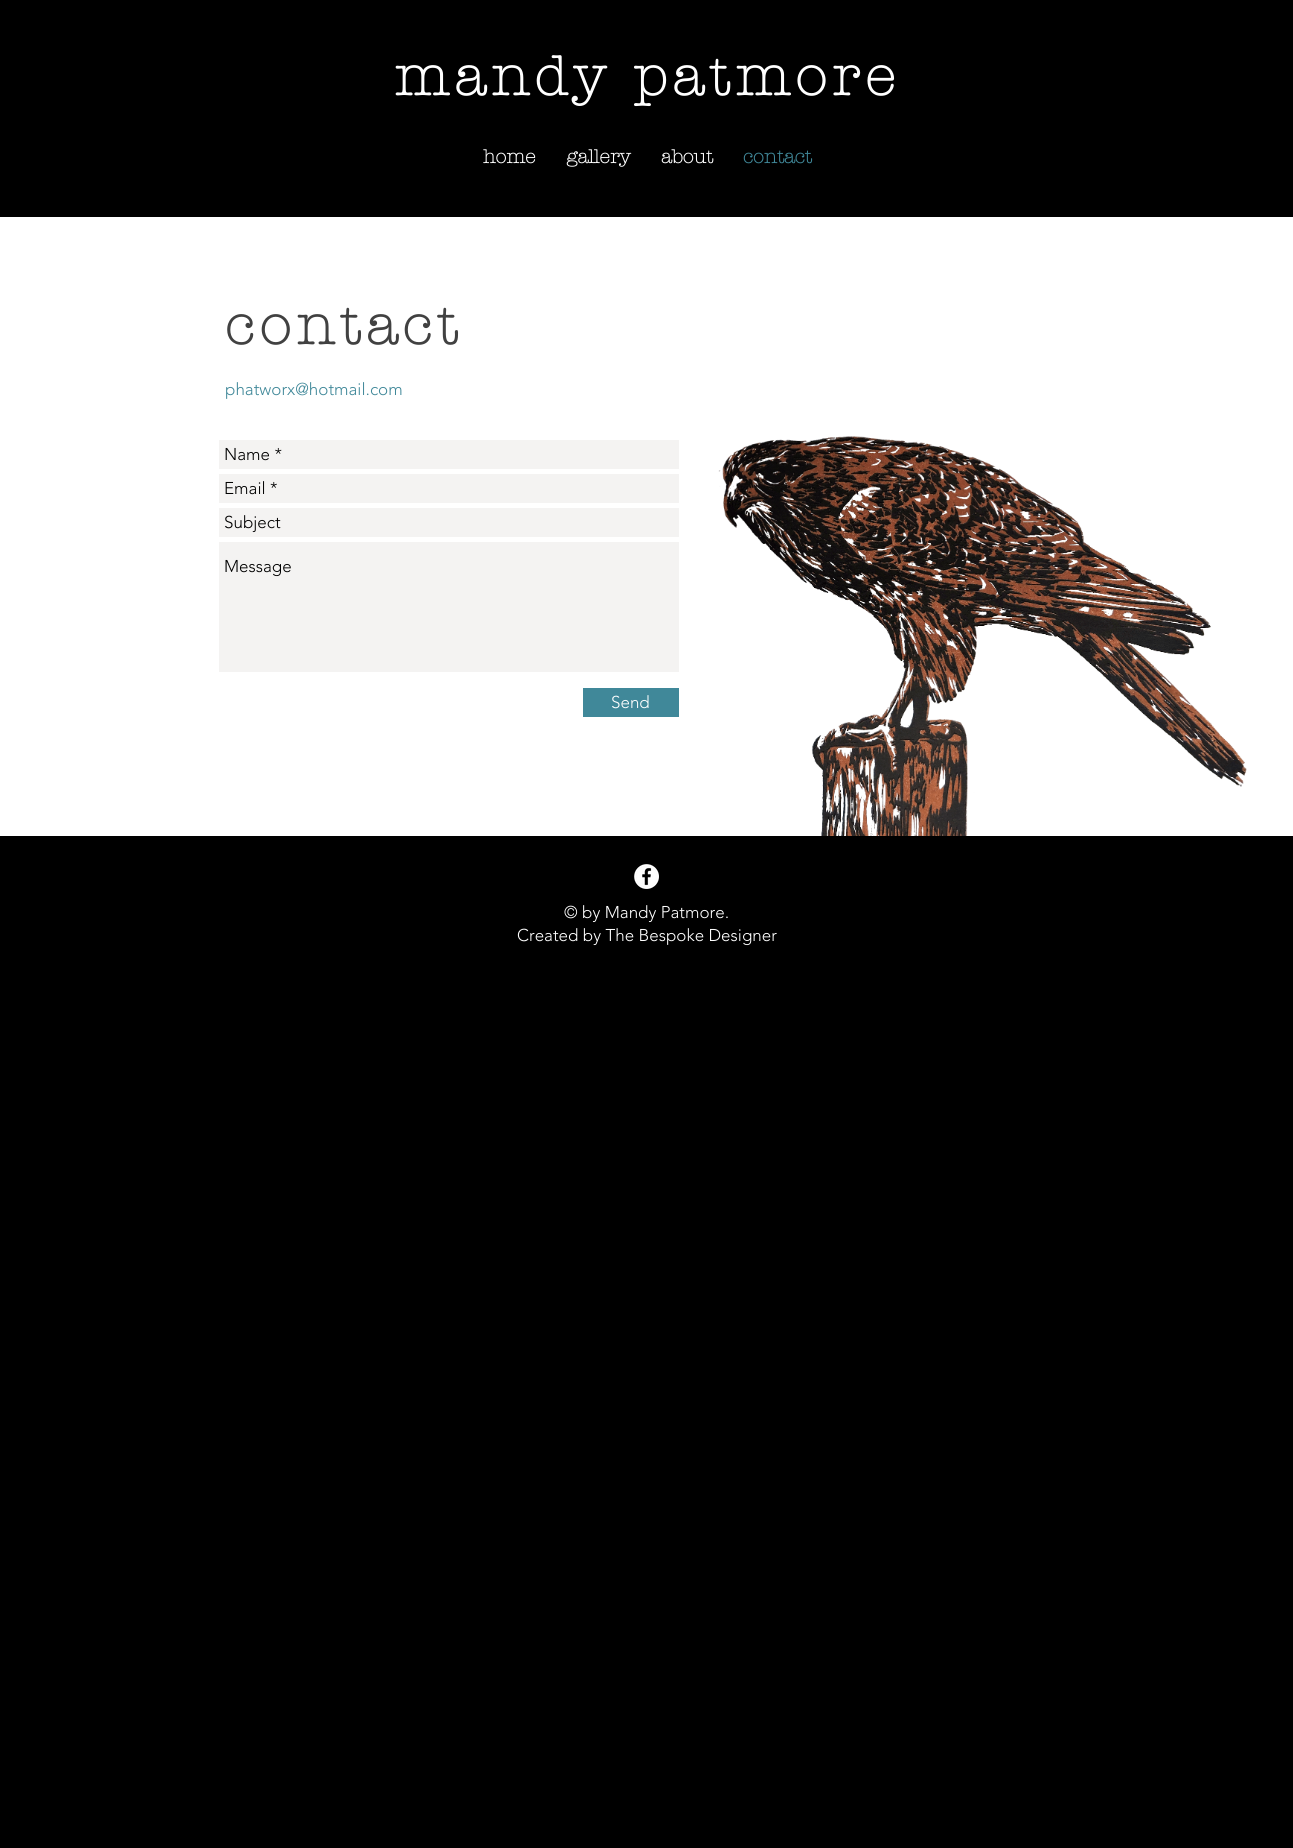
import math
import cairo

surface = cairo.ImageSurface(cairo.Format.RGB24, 1293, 1848)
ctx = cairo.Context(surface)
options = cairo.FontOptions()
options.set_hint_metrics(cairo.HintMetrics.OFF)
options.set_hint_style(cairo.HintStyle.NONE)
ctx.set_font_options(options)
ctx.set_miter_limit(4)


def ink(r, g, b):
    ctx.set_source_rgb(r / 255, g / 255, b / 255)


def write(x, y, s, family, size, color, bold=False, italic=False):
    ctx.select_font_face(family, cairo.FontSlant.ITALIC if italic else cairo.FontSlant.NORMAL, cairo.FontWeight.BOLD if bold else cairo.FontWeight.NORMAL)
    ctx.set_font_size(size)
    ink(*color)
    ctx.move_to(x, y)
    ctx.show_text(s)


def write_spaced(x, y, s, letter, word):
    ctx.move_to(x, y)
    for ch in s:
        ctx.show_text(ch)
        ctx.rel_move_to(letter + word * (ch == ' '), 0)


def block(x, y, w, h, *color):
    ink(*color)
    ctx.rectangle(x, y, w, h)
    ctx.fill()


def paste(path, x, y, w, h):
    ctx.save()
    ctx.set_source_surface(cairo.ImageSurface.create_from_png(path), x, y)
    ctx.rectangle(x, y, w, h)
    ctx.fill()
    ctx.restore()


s1 = dict(family="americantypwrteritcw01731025", size=19, color=(255, 255, 255), bold=True)
s2 = dict(family="americantypwrteritcw01731025", size=19, color=(64, 136, 153), bold=True)
s3 = dict(family="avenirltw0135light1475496 Light", size=17, color=(64, 136, 153))
s4 = dict(family="avenirltw0135light1475496 Light", size=17, color=(0, 0, 0))
s5 = dict(family="avenirltw0135light1475496 Light", size=17, color=(255, 255, 255))

ink(0, 0, 0)
ctx.paint()
ctx.select_font_face("americantypwrteritcw01731025", cairo.FontSlant.NORMAL, cairo.FontWeight.BOLD)
ctx.set_font_size(55)
ink(255, 255, 255)
write_spaced(394, 95, "mandy patmore", 5.5, 0)
write(483, 163, "home", **s1)
write(566, 163, "gallery", **s1)
write(661, 163, "about", **s1)
write(743, 163, "contact", **s2)
block(0, 217, 1293, 619, 255, 255, 255)
ctx.set_font_size(55)
ink(65, 65, 65)
write_spaced(225, 344, "contact", 5.5, 0)
write(225, 395, "phatworx@hotmail.com", **s3)
block(219, 440, 460, 29, 244, 243, 242)
write(224, 460, "Name *", **s4)
block(219, 474, 460, 29, 244, 243, 242)
write(224, 494, "Email *", **s4)
block(219, 508, 460, 29, 244, 243, 242)
write(224, 528, "Subject", **s4)
block(219, 542, 460, 130, 244, 243, 242)
write(224, 572, "Message", **s4)
block(583, 688, 96, 29, 64, 136, 153)
write(611, 708, "Send", **s5)
paste("pic1.png", 718, 436, 529, 400)
paste("pic2.png", 634, 864, 25, 25)
write(564, 918, "© by Mandy Patmore.", **s5)
write(517, 941, "Created by The Bespoke Designer", **s5)
surface.write_to_png("screenshot.png")
